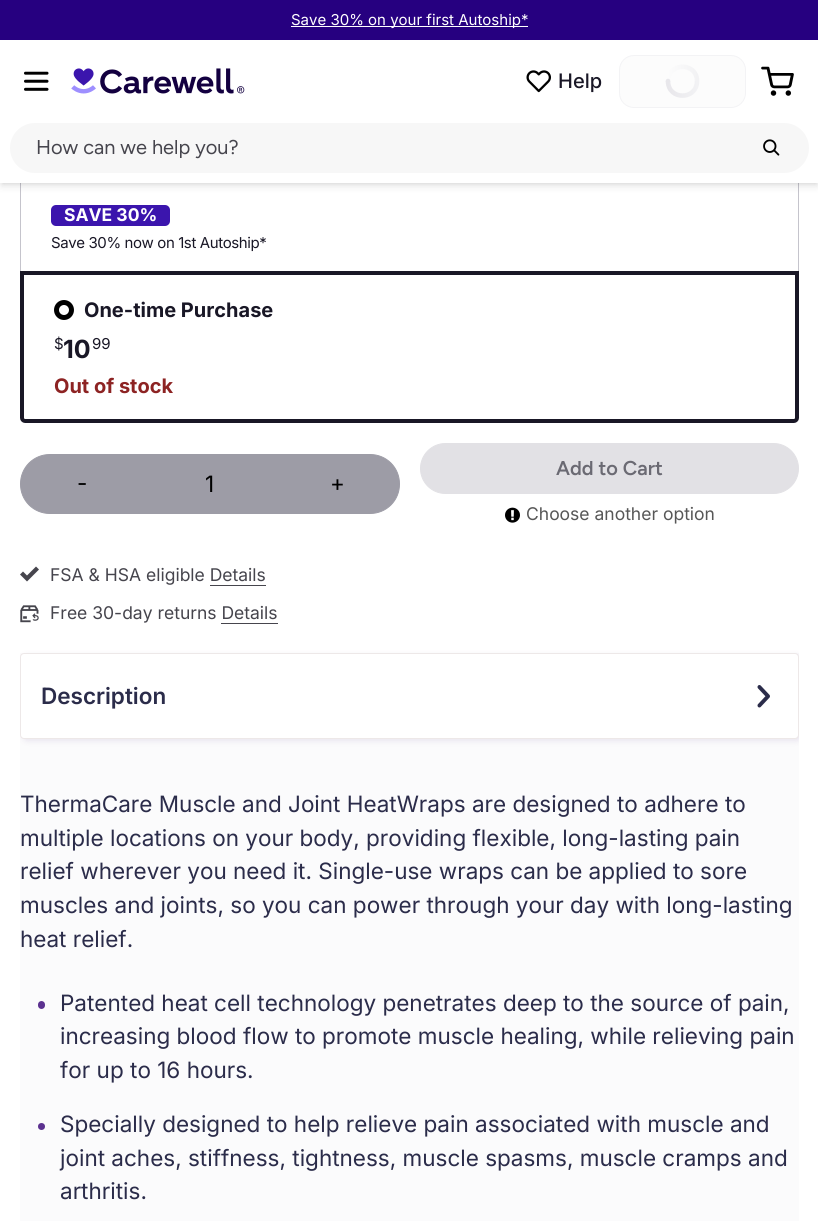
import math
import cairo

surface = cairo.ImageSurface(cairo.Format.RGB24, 818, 1221)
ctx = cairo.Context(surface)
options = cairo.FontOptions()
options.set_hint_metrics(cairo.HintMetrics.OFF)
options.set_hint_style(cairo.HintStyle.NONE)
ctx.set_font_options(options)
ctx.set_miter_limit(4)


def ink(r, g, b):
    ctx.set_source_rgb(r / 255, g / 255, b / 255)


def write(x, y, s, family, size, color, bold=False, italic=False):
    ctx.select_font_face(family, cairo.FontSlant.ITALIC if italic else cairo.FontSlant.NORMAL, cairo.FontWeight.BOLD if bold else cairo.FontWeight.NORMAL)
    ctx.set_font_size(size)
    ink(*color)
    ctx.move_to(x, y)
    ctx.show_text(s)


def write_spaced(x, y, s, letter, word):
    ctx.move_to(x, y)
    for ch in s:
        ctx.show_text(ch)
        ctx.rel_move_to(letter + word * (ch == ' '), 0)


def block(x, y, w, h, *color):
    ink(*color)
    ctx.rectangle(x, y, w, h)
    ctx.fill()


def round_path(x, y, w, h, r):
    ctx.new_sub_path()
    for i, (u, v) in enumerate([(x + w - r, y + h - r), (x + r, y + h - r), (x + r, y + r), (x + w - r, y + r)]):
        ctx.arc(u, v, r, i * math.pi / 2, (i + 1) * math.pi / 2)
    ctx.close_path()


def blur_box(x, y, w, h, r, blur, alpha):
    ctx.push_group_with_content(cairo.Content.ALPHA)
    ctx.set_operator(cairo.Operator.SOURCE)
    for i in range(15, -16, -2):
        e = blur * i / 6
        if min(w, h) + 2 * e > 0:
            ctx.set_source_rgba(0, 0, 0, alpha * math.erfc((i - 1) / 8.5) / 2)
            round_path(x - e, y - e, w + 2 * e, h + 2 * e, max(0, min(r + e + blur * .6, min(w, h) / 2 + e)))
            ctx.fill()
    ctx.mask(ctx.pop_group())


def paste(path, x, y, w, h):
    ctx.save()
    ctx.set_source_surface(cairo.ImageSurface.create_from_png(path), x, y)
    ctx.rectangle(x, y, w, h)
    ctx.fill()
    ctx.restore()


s1 = dict(family="Inter", size=15, color=(255, 255, 255))
s2 = dict(family="Inter Medium", size=20, color=(25, 23, 38))
s3 = dict(family="Figtree", size=20, color=(70, 69, 77))
s4 = dict(family="Inter", size=17.5, color=(255, 255, 255), bold=True)
s5 = dict(family="Inter", size=20, color=(25, 23, 38), bold=True)
s6 = dict(family="Inter", size=15, color=(25, 23, 38))
s7 = dict(family="Inter", size=25, color=(25, 23, 38), bold=True)
s8 = dict(family="Inter", size=20, color=(141, 35, 35), bold=True)
s9 = dict(family="Inter", size=22.5, color=(0, 0, 0))
s10 = dict(family="Figtree SemiBold", size=20, color=(107, 106, 115))
s11 = dict(family="Inter", size=17.5, color=(87, 87, 87))
s12 = dict(family="Inter", size=17.5, color=(70, 69, 77))
s13 = dict(family="Inter SemiBold", size=22.5, color=(43, 44, 74))
s14 = dict(family="Inter", size=22.5, color=(43, 44, 74))

ink(255, 255, 255)
ctx.paint()
ink(197, 196, 204)
ctx.set_fill_rule(cairo.FillRule.EVEN_ODD)
ctx.new_path()
ctx.move_to(25, 109)
ctx.line_to(794, 109)
ctx.curve_to(797, 109, 799, 111, 799, 114)
ctx.line_to(799, 271)
ctx.line_to(20, 271)
ctx.line_to(20, 114)
ctx.curve_to(20, 111, 22, 109, 25, 109)
ctx.close_path()
ctx.move_to(25, 110)
ctx.line_to(794, 110)
ctx.curve_to(796, 110, 798, 112, 798, 114)
ctx.line_to(798, 271)
ctx.line_to(21, 271)
ctx.line_to(21, 114)
ctx.curve_to(21, 112, 23, 110, 25, 110)
ctx.close_path()
ctx.fill()
ink(0, 0, 0)
blur_box(3, 5, 813, 178, 0, 2.5, 0.1)
blur_box(1, 6, 817, 180, 0, 4, 0.1)
block(0, 40, 818, 143, 255, 255, 255)
block(0, 0, 818, 40, 38, 0, 128)
block(291, 26, 237, 1, 255, 255, 255)
write(291, 25, "Save 30% on your first Autoship*", **s1)
paste("pic1.png", 24, 71, 25, 20)
paste("pic2.png", 71, 68, 174, 26)
paste("pic3.png", 526, 70, 25, 23)
write(558, 88, "Help", **s2)
ink(252, 252, 252)
round_path(619.5, 55.5, 126, 52, 14.5)
ctx.fill_preserve()
ink(243, 243, 245)
ctx.set_line_width(1)
ctx.stroke()
ctx.new_path()
ctx.move_to(668, 81)
ctx.curve_to(668, 62, 697, 62, 697, 81)
gradient = cairo.LinearGradient(668, 67, 697, 67)
gradient.add_color_stop_rgba(0, 0.988, 0.988, 0.988, 1)
gradient.add_color_stop_rgba(1, 0.949, 0.949, 0.957, 1)
ctx.set_source(gradient)
ctx.set_line_width(4.6)
ctx.stroke()
ctx.new_path()
ctx.move_to(697, 81)
ctx.curve_to(697, 100.5, 668, 100.5, 668, 81)
gradient = cairo.LinearGradient(668, 81, 697, 81)
gradient.add_color_stop_rgba(0, 0.91, 0.906, 0.922, 1)
gradient.add_color_stop_rgba(1, 0.949, 0.949, 0.957, 1)
ctx.set_source(gradient)
ctx.stroke()
ctx.new_path()
ctx.move_to(668, 81)
ctx.line_to(668, 81)
ink(232, 231, 235)
ctx.set_line_cap(cairo.LineCap.ROUND)
ctx.stroke()
paste("pic4.png", 761, 66, 33, 30)
ink(247, 247, 247)
round_path(10, 123, 799, 50, 25)
ctx.fill()
write(36, 154, "How can we help you?", **s3)
paste("pic5.png", 763, 139, 17, 17)
ink(59, 21, 173)
round_path(51, 205, 119, 21, 5)
ctx.fill()
write(64, 221, "SAVE 30%", **s4)
ctx.select_font_face("Inter")
ctx.set_font_size(15)
ink(25, 23, 38)
write_spaced(51, 248, "Save 30% now on 1st Autoship*", -0.4, 0)
ctx.new_path()
ctx.move_to(22, 273)
ctx.line_to(797, 273)
ctx.line_to(797, 418)
ctx.curve_to(797, 419.5, 795.5, 421, 794, 421)
ctx.line_to(25, 421)
ctx.curve_to(23.5, 421, 22, 419.5, 22, 418)
ctx.close_path()
ctx.set_line_width(4)
ctx.set_line_cap(cairo.LineCap.BUTT)
ctx.stroke()
ctx.arc(64, 310, 7.5, 0, 2 * math.pi)
ink(0, 0, 0)
ctx.set_line_width(5)
ctx.stroke()
write(84, 317, "One-time Purchase", **s5)
write(54, 349, "$", **s6)
write(63, 358, "10", **s7)
write(92, 349, "99", **s6)
write(54, 393, "Out of stock", **s8)
ink(157, 156, 166)
ctx.new_path()
ctx.move_to(50, 454.5)
ctx.line_to(143.5, 454.5)
ctx.line_to(143.5, 513.5)
ctx.line_to(50, 513.5)
ctx.curve_to(33.5, 513.5, 20.5, 500.5, 20.5, 484)
ctx.curve_to(20.5, 467.5, 33.5, 454.5, 50, 454.5)
ctx.close_path()
ctx.fill_preserve()
ctx.set_line_width(1)
ctx.stroke()
write(77, 491, "-", **s9)
block(144, 454, 131, 60, 157, 156, 166)
write(205, 492, "1", **s9)
ink(157, 156, 166)
ctx.new_path()
ctx.move_to(275.5, 454.5)
ctx.line_to(370, 454.5)
ctx.curve_to(386.5, 454.5, 399.5, 467.5, 399.5, 484)
ctx.curve_to(399.5, 500.5, 386.5, 513.5, 370, 513.5)
ctx.line_to(275.5, 513.5)
ctx.close_path()
ctx.fill_preserve()
ctx.stroke()
write(330, 491, "+", **s9)
ink(226, 225, 229)
round_path(420.5, 443.5, 378, 50, 25)
ctx.fill_preserve()
ctx.stroke()
write(556, 475, "Add to Cart", **s10)
paste("pic6.png", 505, 507, 15, 16)
write(526, 520, "Choose another option", **s11)
ink(70, 69, 77)
ctx.set_fill_rule(cairo.FillRule.WINDING)
ctx.new_path()
ctx.move_to(36, 566.5)
ctx.line_to(27, 575.5)
ctx.line_to(23, 571.5)
ctx.line_to(20, 574.5)
ctx.line_to(27, 581.5)
ctx.line_to(39, 569.5)
ctx.close_path()
ctx.fill()
write(50, 581, "FSA & HSA eligible Details", **s12)
block(210, 585, 56, 1, 70, 69, 77)
paste("pic7.png", 20, 605, 19, 18)
write(50, 619, "Free 30-day returns Details", **s12)
block(221, 623, 57, 1, 70, 69, 77)
block(20, 653, 779, 568, 251, 251, 252)
ctx.save()
ctx.rectangle(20, 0, 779, 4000)
ctx.clip()
ink(69, 27, 121)
blur_box(23, 655, 778, 86, 4, 3, 0.1)
ctx.restore()
ink(255, 255, 255)
round_path(20.5, 653.5, 778, 85, 3.5)
ctx.fill_preserve()
ink(237, 232, 232)
ctx.stroke()
write(41, 704, "Description", **s13)
paste("pic8.png", 757, 685, 13, 23)
write(20, 812, "ThermaCare Muscle and Joint HeatWraps are designed to adhere to", **s14)
write(20, 846, "multiple locations on your body, providing flexible, long-lasting pain", **s14)
write(20, 879, "relief wherever you need it. Single-use wraps can be applied to sore", **s14)
write(20, 913, "muscles and joints, so you can power through your day with long-lasting", **s14)
write(20, 947, "heat relief.", **s14)
ink(92, 50, 144)
round_path(38, 1001, 7, 8, 3.5)
ctx.fill()
write(60, 1011, "Patented heat cell technology penetrates deep to the source of pain,", **s14)
write(60, 1044, "increasing blood flow to promote muscle healing, while relieving pain", **s14)
write(60, 1078, "for up to 16 hours.", **s14)
ink(92, 50, 144)
ctx.new_path()
ctx.arc(41.5, 1126.5, 3.5, 0, 2 * math.pi)
ctx.fill()
write(60, 1132, "Specially designed to help relieve pain associated with muscle and", **s14)
write(60, 1166, "joint aches, stiffness, tightness, muscle spasms, muscle cramps and", **s14)
write(60, 1199, "arthritis.", **s14)
surface.write_to_png("screenshot.png")
